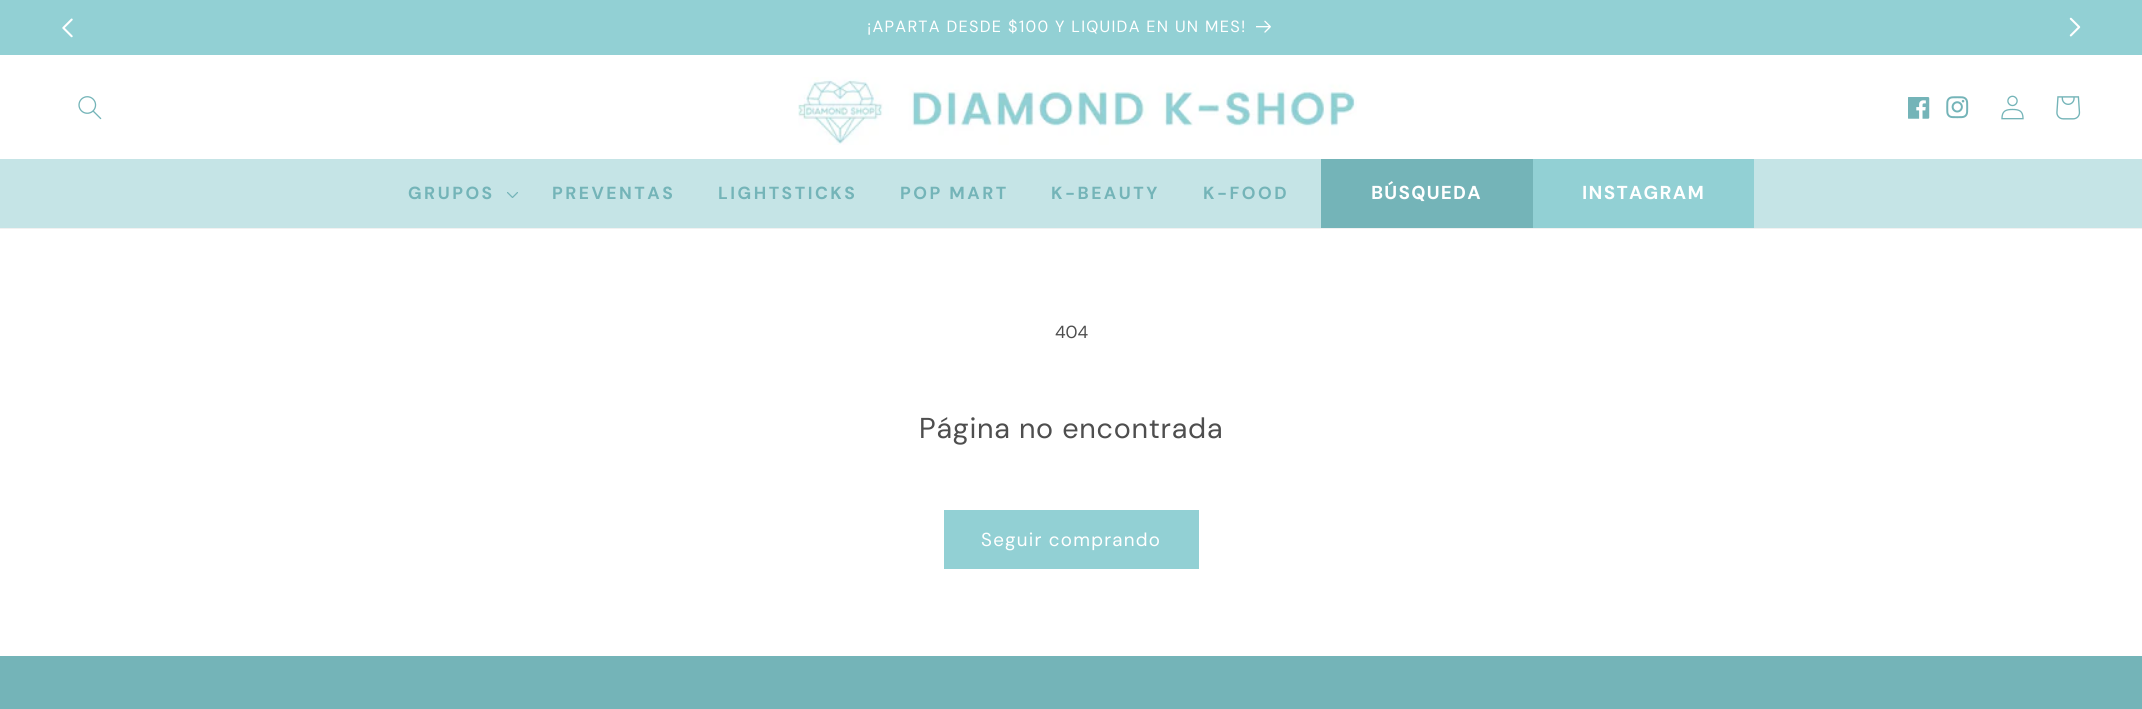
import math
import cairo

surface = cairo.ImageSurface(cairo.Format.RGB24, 2142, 709)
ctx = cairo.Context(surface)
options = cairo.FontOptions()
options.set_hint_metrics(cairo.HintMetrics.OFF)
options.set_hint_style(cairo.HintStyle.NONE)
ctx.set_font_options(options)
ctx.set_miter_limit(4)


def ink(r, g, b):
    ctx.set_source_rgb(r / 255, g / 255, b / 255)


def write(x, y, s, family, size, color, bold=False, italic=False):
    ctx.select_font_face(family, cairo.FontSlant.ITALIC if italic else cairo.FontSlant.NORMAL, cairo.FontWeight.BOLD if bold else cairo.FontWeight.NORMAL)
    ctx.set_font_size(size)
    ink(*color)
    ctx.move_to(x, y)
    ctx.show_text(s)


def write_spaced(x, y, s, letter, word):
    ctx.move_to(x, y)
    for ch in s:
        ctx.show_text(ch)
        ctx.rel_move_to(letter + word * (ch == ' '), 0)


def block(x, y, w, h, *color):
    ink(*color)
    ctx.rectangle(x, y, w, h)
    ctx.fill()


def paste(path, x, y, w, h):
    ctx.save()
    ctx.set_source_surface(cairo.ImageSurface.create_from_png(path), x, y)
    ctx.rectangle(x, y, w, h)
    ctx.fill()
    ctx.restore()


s1 = dict(family="DM Sans", size=17.5, color=(78, 78, 78))

ink(255, 255, 255)
ctx.paint()
block(0, 0, 2142, 55, 146, 208, 212)
paste("pic1.png", 62, 18, 11, 20)
ctx.select_font_face("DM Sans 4")
ctx.set_font_size(16.25)
ink(255, 255, 255)
write_spaced(867, 32, "¡APARTA DESDE $100 Y LIQUIDA EN UN MES!", 1.25, 0)
paste("pic2.png", 1256, 20, 15, 13)
paste("pic3.png", 2069, 17, 12, 20)
block(0, 228, 2142, 1, 241, 241, 241)
paste("pic4.png", 78, 96, 24, 24)
paste("pic5.png", 798, 77, 559, 68)
paste("pic6.png", 1908, 97, 22, 22)
paste("pic7.png", 1946, 96, 23, 23)
paste("pic8.png", 2001, 95, 23, 25)
paste("pic9.png", 2056, 96, 25, 24)
block(0, 159, 2142, 69, 197, 228, 230)
ctx.select_font_face("DM Sans", cairo.FontSlant.NORMAL, cairo.FontWeight.BOLD)
ctx.set_font_size(17.5)
ink(116, 180, 184)
write_spaced(408, 199, "GRUPOS", 2.5, 0)
paste("pic10.png", 507, 192, 11, 6)
write_spaced(552, 199, "PREVENTAS", 2.5, 0)
write_spaced(718, 199, "LIGHTSTICKS", 2.5, 0)
write_spaced(900, 199, "POP MART", 2.5, 0)
write_spaced(1051, 199, "K-BEAUTY", 2.5, 0)
write_spaced(1203, 199, "K-FOOD", 2.5, 0)
block(1321, 159, 212, 69, 116, 180, 184)
ctx.select_font_face("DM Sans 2", cairo.FontSlant.NORMAL, cairo.FontWeight.BOLD)
ctx.set_font_size(18.75)
ink(255, 255, 255)
write_spaced(1371, 199, "BÚSQUEDA", 1.25, 0)
block(1533, 159, 221, 69, 146, 208, 212)
ink(255, 255, 255)
write_spaced(1582, 199, "INSTAGRAM", 1.25, 0)
write(1055, 338, "404", **s1)
ctx.select_font_face("DM Sans 2")
ctx.set_font_size(28.75)
write_spaced(919, 438, "Página no encontrada", 0.75, 0)
block(944, 510, 255, 59, 146, 208, 212)
ctx.select_font_face("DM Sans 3")
ctx.set_font_size(18.75)
ink(255, 255, 255)
write_spaced(981, 546, "Seguir comprando", 1.25, 0)
block(0, 656, 2142, 53, 116, 180, 184)
surface.write_to_png("screenshot.png")
